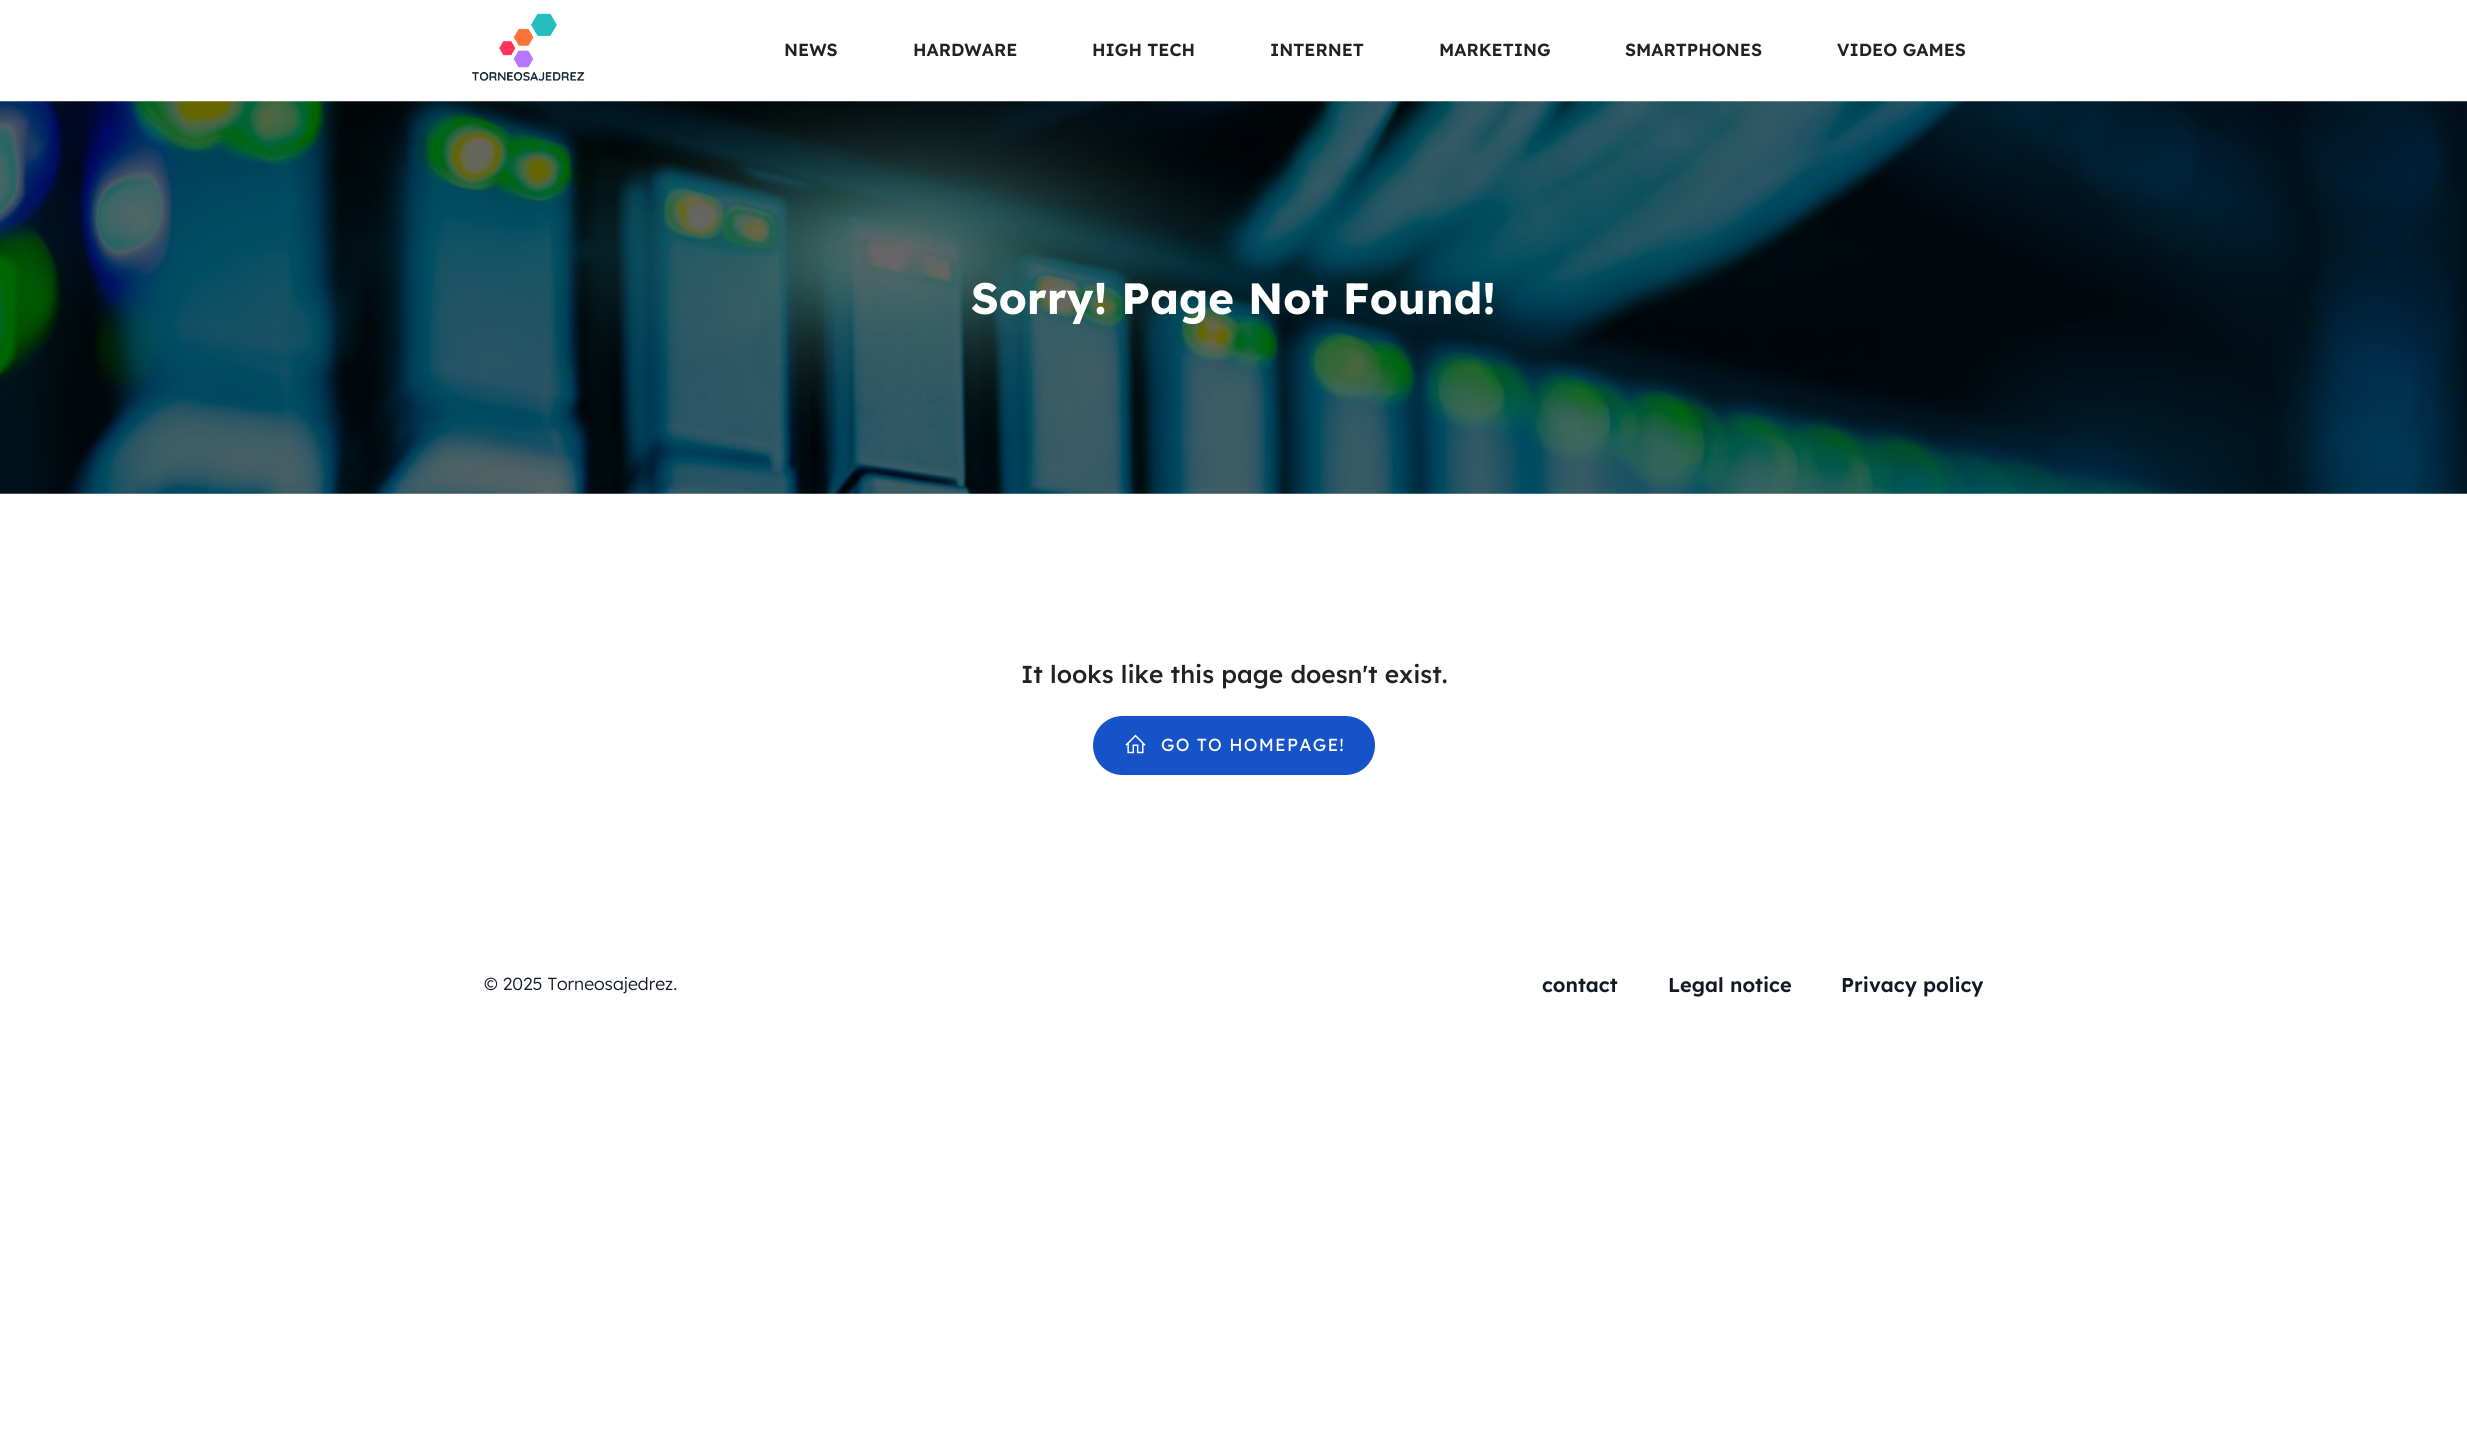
import math
import cairo

surface = cairo.ImageSurface(cairo.Format.RGB24, 2467, 1438)
ctx = cairo.Context(surface)
options = cairo.FontOptions()
options.set_hint_metrics(cairo.HintMetrics.OFF)
options.set_hint_style(cairo.HintStyle.NONE)
ctx.set_font_options(options)
ctx.set_miter_limit(4)


def ink(r, g, b):
    ctx.set_source_rgb(r / 255, g / 255, b / 255)


def write(x, y, s, family, size, color, bold=False, italic=False):
    ctx.select_font_face(family, cairo.FontSlant.ITALIC if italic else cairo.FontSlant.NORMAL, cairo.FontWeight.BOLD if bold else cairo.FontWeight.NORMAL)
    ctx.set_font_size(size)
    ink(*color)
    ctx.move_to(x, y)
    ctx.show_text(s)


def write_spaced(x, y, s, letter, word):
    ctx.move_to(x, y)
    for ch in s:
        ctx.show_text(ch)
        ctx.rel_move_to(letter + word * (ch == ' '), 0)


def round_path(x, y, w, h, r):
    ctx.new_sub_path()
    for i, (u, v) in enumerate([(x + w - r, y + h - r), (x + r, y + h - r), (x + r, y + r), (x + w - r, y + r)]):
        ctx.arc(u, v, r, i * math.pi / 2, (i + 1) * math.pi / 2)
    ctx.close_path()


def paste(path, x, y, w, h):
    ctx.save()
    ctx.set_source_surface(cairo.ImageSurface.create_from_png(path), x, y)
    ctx.rectangle(x, y, w, h)
    ctx.fill()
    ctx.restore()


s1 = dict(family="Lexend SemiBold", size=17.5, color=(32, 34, 38))
s2 = dict(family="Lexend", size=43.75, color=(255, 255, 255), bold=True)
s3 = dict(family="Lexend Medium", size=24.5, color=(32, 34, 38))
s4 = dict(family="Lexend Light", size=17.5, color=(19, 25, 37))
s5 = dict(family="Lexend SemiBold", size=20, color=(19, 25, 37))

ink(255, 255, 255)
ctx.paint()
paste("pic1.png", 472, 13, 113, 68)
write(784, 56, "NEWS", **s1)
write(913, 56, "HARDWARE", **s1)
write(1092, 56, "HIGH TECH", **s1)
write(1270, 56, "INTERNET", **s1)
write(1439, 56, "MARKETING", **s1)
write(1625, 56, "SMARTPHONES", **s1)
write(1837, 56, "VIDEO GAMES", **s1)
paste("pic2.png", 0, 101, 2467, 393)
write(971, 314, "Sorry! Page Not Found!", **s2)
write(1021, 683, "It looks like this page doesn't exist.", **s3)
ink(22, 83, 200)
round_path(1093, 716, 282, 59, 29.5)
ctx.fill()
paste("pic3.png", 1125, 734, 21, 20)
ctx.select_font_face("Lexend")
ctx.set_font_size(17.5)
ink(255, 255, 255)
write_spaced(1161, 751, "GO TO HOMEPAGE!", 1.25, 0)
write(484, 990, "© 2025 Torneosajedrez.", **s4)
write(1542, 992, "contact", **s5)
write(1668, 992, "Legal notice", **s5)
write(1841, 992, "Privacy policy", **s5)
surface.write_to_png("screenshot.png")
